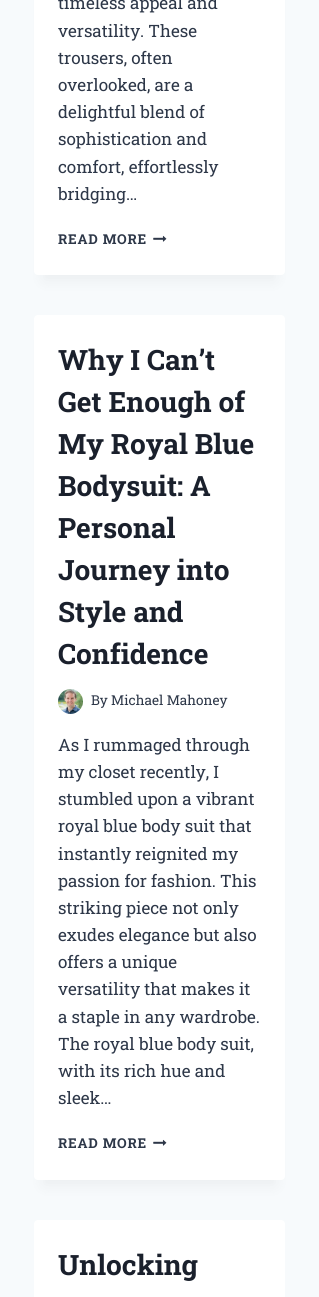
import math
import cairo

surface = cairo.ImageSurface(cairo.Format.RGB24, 319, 1297)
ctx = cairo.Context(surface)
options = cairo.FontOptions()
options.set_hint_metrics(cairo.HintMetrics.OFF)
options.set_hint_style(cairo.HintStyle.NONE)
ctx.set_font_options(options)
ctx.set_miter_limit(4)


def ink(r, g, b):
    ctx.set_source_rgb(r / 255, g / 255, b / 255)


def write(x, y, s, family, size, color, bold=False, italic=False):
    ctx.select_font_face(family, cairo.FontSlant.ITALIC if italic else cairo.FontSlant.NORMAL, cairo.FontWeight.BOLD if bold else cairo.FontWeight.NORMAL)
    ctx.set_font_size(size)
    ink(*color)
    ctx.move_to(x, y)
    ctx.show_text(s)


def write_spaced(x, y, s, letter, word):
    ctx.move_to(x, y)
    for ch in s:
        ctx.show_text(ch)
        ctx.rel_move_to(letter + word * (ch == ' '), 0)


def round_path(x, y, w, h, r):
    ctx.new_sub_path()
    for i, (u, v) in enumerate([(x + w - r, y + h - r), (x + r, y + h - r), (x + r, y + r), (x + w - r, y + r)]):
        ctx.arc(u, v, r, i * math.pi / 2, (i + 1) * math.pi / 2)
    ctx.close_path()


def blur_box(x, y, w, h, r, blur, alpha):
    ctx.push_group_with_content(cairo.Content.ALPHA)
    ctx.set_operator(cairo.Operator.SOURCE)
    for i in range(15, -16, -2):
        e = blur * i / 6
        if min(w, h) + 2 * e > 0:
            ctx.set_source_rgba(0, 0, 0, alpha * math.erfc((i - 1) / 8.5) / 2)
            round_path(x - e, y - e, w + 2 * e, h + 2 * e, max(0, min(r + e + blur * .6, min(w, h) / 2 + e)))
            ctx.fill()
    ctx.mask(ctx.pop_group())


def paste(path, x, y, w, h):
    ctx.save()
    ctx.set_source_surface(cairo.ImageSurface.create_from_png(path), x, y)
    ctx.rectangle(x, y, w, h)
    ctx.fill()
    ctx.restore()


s1 = dict(family="Roboto Slab", size=17, color=(45, 55, 72))
s2 = dict(family="Roboto Slab", size=28, color=(26, 32, 44), bold=True)
s3 = dict(family="Roboto Slab", size=13.6, color=(45, 55, 72))

ink(247, 250, 252)
ctx.paint()
ink(0, 0, 0)
blur_box(44, -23, 231, 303, 0, 7.5, 0.05)
ink(255, 255, 255)
round_path(34, -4, 251, 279, 4)
ctx.fill()
write(58, 9, "timeless appeal and", **s1)
write(58, 37, "versatility. These", **s1)
write(58, 64, "trousers, often", **s1)
write(58, 91, "overlooked, are a", **s1)
write(58, 118, "delightful blend of", **s1)
write(58, 145, "sophistication and", **s1)
write(58, 173, "comfort, effortlessly", **s1)
write(58, 200, "bridging…", **s1)
ctx.select_font_face("Roboto Slab", cairo.FontSlant.NORMAL, cairo.FontWeight.BOLD)
ctx.set_font_size(13.6)
write_spaced(58, 244, "READ MORE", 0.75, 0)
paste("pic1.png", 153, 235, 14, 7)
ink(0, 0, 0)
blur_box(44, 340, 231, 845, 0, 7.5, 0.05)
ink(255, 255, 255)
round_path(34, 315, 251, 865, 4)
ctx.fill()
write(58, 370, "Why I Can’t", **s2)
write(58, 412, "Get Enough of", **s2)
write(58, 454, "My Royal Blue", **s2)
write(58, 496, "Bodysuit: A", **s2)
write(58, 538, "Personal", **s2)
write(58, 580, "Journey into", **s2)
write(58, 622, "Style and", **s2)
write(58, 664, "Confidence", **s2)
paste("pic2.png", 58, 689, 25, 25)
write(91, 705, "By Michael Mahoney", **s3)
write(58, 751, "As I rummaged through", **s1)
write(58, 778, "my closet recently, I", **s1)
write(58, 805, "stumbled upon a vibrant", **s1)
write(58, 832, "royal blue body suit that", **s1)
write(58, 860, "instantly reignited my", **s1)
write(58, 887, "passion for fashion. This", **s1)
write(58, 914, "striking piece not only", **s1)
write(58, 941, "exudes elegance but also", **s1)
write(58, 968, "offers a unique", **s1)
write(58, 995, "versatility that makes it", **s1)
write(58, 1023, "a staple in any wardrobe.", **s1)
write(58, 1050, "The royal blue body suit,", **s1)
write(58, 1077, "with its rich hue and", **s1)
write(58, 1104, "sleek…", **s1)
ctx.select_font_face("Roboto Slab", cairo.FontSlant.NORMAL, cairo.FontWeight.BOLD)
ctx.set_font_size(13.6)
write_spaced(58, 1148, "READ MORE", 0.75, 0)
paste("pic1.png", 153, 1139, 14, 7)
ink(255, 255, 255)
round_path(34, 1220, 251, 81, 4)
ctx.fill()
write(58, 1275, "Unlocking", **s2)
surface.write_to_png("screenshot.png")
